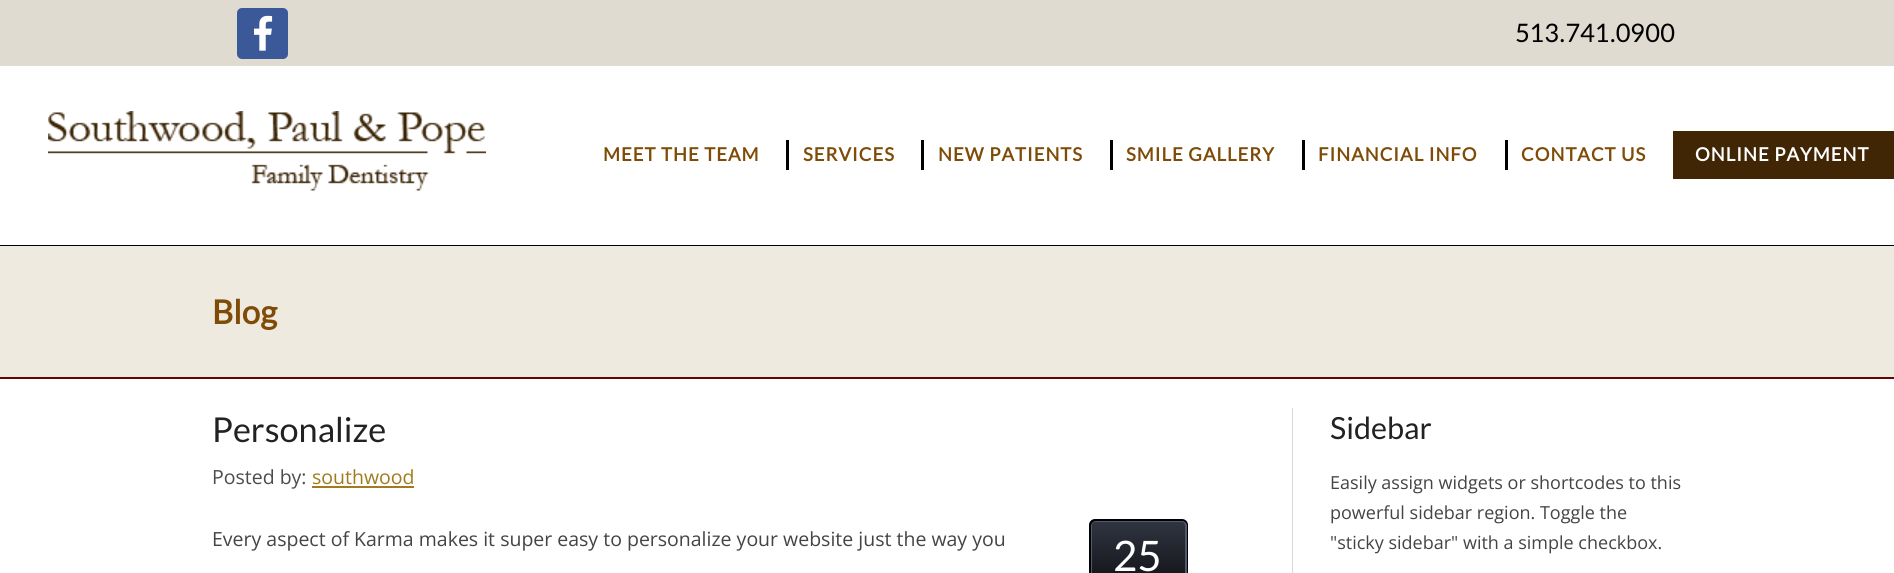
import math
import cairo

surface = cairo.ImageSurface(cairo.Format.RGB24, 1894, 573)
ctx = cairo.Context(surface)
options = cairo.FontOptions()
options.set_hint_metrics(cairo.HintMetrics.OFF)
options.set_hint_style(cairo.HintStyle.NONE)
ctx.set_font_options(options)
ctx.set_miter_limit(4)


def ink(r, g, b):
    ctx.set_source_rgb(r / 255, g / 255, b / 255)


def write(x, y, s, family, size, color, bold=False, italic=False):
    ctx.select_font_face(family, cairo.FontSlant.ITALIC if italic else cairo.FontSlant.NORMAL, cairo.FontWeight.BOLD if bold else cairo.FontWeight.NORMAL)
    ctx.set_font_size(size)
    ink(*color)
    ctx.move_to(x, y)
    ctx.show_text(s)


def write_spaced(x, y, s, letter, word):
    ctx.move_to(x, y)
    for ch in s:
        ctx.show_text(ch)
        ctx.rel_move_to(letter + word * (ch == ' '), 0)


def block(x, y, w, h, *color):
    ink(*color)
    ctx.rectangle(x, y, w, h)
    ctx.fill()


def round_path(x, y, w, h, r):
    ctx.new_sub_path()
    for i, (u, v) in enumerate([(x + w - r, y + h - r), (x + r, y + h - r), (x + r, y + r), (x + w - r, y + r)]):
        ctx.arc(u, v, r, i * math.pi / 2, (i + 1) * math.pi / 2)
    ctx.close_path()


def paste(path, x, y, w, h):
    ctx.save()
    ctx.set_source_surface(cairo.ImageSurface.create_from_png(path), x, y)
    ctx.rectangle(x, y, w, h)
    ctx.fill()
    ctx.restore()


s1 = dict(family="Lato", size=25.5, color=(0, 0, 0))
s2 = dict(family="Lato", size=33, color=(127, 76, 8), bold=True)
s3 = dict(family="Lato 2", size=34.25, color=(34, 34, 34))
s4 = dict(family="Open Sans", size=19.5, color=(76, 76, 76))
s5 = dict(family="Open Sans", size=19.5, color=(161, 123, 28))
s6 = dict(family="Open Sans", size=19.5, color=(68, 68, 68))
s7 = dict(family="Lato 2", size=42, color=(255, 255, 255))
s8 = dict(family="Lato 2", size=30.5, color=(34, 34, 34))
s9 = dict(family="Open Sans", size=18, color=(68, 68, 68))

ink(223, 219, 209)
ctx.paint()
ink(59, 89, 152)
round_path(237, 8, 51, 51, 5)
ctx.fill()
paste("pic1.png", 254, 15, 19, 36)
write(1515, 42, "513.741.0900", **s1)
block(0, 66, 1894, 179, 255, 255, 255)
block(0, 245, 1894, 1, 0, 0, 0)
paste("pic2.png", 48, 111, 438, 80)
ctx.select_font_face("Lato", cairo.FontSlant.NORMAL, cairo.FontWeight.BOLD)
ctx.set_font_size(18.5)
ink(127, 76, 8)
write_spaced(603, 161, "MEET THE TEAM", 1, 0)
block(786, 140, 3, 30, 0, 0, 0)
ink(127, 76, 8)
write_spaced(803, 161, "SERVICES", 1, 0)
block(921, 140, 3, 30, 0, 0, 0)
ink(127, 76, 8)
write_spaced(938, 161, "NEW PATIENTS", 1, 0)
block(1110, 140, 3, 30, 0, 0, 0)
ink(127, 76, 8)
write_spaced(1126, 161, "SMILE GALLERY", 1, 0)
block(1302, 140, 3, 30, 0, 0, 0)
ink(127, 76, 8)
write_spaced(1318, 161, "FINANCIAL INFO", 1, 0)
block(1505, 140, 3, 30, 0, 0, 0)
ink(127, 76, 8)
write_spaced(1521, 161, "CONTACT US", 1, 0)
block(1673, 131, 221, 48, 64, 38, 4)
ink(255, 255, 255)
write_spaced(1695, 161, "ONLINE PAYMENT", 1, 0)
block(0, 379, 1894, 194, 255, 255, 255)
block(0, 246, 1894, 131, 238, 234, 224)
block(0, 377, 1894, 2, 103, 6, 0)
write(212, 324, "Blog", **s2)
write(212, 442, "Personalize", **s3)
write(212, 484, "Posted by:", **s4)
write(312, 484, "southwood", **s5)
block(312, 486, 102, 2, 161, 123, 28)
write(212, 546, "Every aspect of Karma makes it super easy to personalize your website just the way you", **s6)
round_path(1090.5, 520.5, 96, 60, 4.5)
ink(0, 0, 0)
ctx.set_line_width(3)
ctx.stroke()
round_path(1092, 522, 94, 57, 4)
ink(81, 89, 108)
ctx.set_line_width(2)
ctx.stroke()
gradient = cairo.LinearGradient(1139, 522, 1139, 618)
gradient.add_color_stop_rgba(0, 0.188, 0.204, 0.251, 1)
gradient.add_color_stop_rgba(1, 0.004, 0.004, 0.004, 1)
ctx.set_source(gradient)
round_path(1092, 522, 93, 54, 3)
ctx.fill()
write(1113, 571, "25", **s7)
block(1292, 408, 1, 165, 216, 216, 214)
block(1293, 408, 2, 165, 254, 254, 252)
write(1330, 439, "Sidebar", **s8)
write(1330, 489, "Easily assign widgets or shortcodes to this", **s9)
write(1330, 519, "powerful sidebar region. Toggle the", **s9)
write(1330, 549, "\"sticky sidebar\" with a simple checkbox.", **s9)
surface.write_to_png("screenshot.png")
